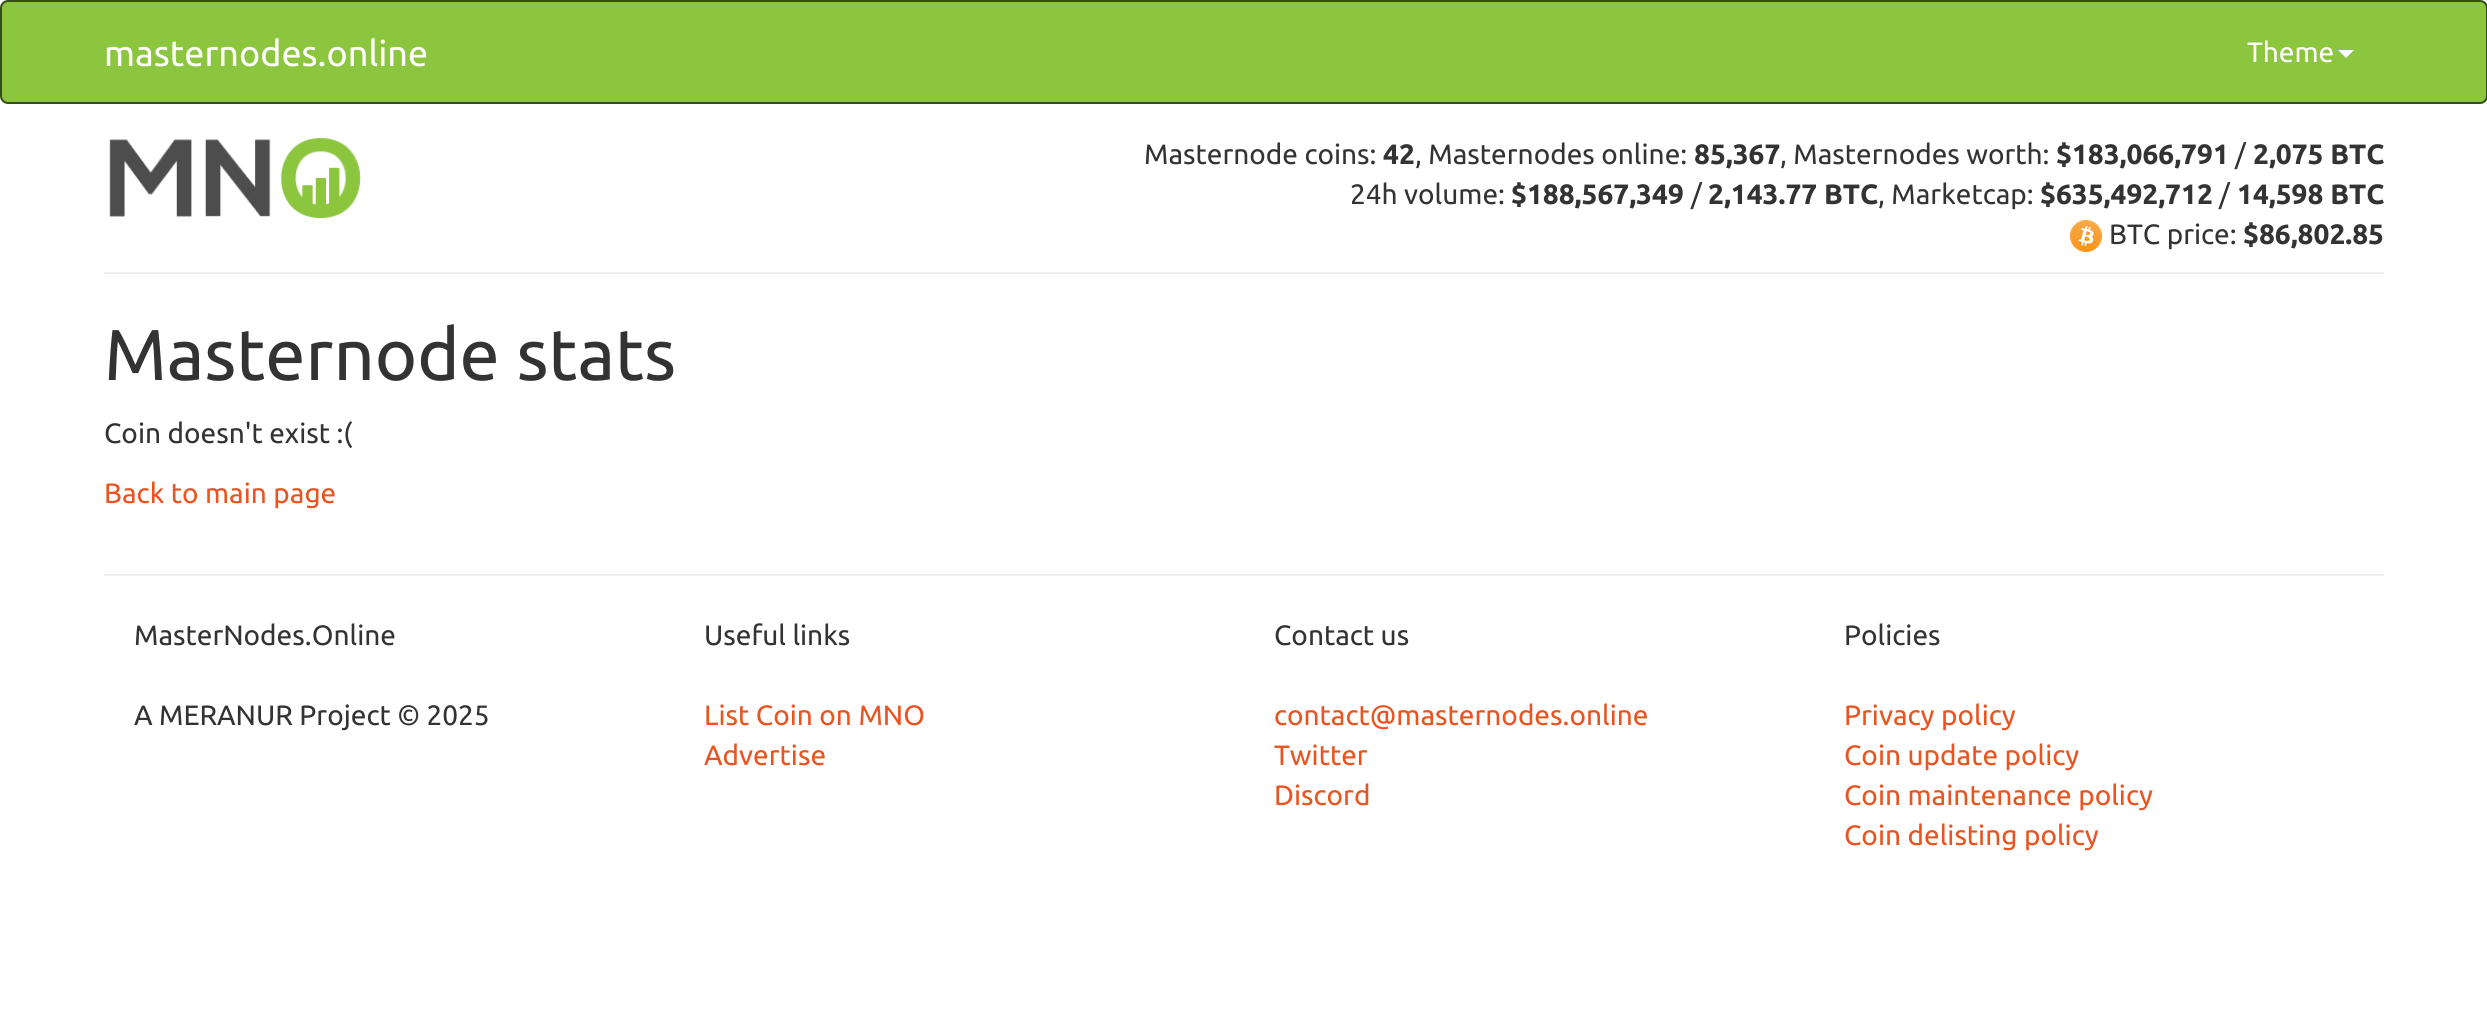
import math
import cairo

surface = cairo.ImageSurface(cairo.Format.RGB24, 2487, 1012)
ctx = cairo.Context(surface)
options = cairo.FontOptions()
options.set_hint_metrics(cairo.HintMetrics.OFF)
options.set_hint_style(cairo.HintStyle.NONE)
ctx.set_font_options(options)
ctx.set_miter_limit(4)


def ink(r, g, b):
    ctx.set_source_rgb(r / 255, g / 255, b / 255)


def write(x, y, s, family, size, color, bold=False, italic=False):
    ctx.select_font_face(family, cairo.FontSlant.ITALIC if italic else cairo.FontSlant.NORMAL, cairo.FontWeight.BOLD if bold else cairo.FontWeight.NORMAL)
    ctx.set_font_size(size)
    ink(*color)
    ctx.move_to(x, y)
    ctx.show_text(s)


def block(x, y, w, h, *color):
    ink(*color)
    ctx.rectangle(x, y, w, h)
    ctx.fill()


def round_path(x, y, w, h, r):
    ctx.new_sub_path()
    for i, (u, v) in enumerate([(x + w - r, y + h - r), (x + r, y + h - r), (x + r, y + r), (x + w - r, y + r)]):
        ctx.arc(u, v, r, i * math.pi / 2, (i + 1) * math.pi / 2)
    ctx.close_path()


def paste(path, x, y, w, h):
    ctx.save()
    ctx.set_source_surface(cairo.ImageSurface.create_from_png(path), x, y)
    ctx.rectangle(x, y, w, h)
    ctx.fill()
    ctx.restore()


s1 = dict(family="Ubuntu", size=36, color=(255, 255, 255))
s2 = dict(family="Ubuntu", size=28, color=(255, 255, 255))
s3 = dict(family="Ubuntu", size=28, color=(51, 51, 51))
s4 = dict(family="Ubuntu", size=28, color=(51, 51, 51), bold=True)
s5 = dict(family="Ubuntu", size=72, color=(51, 51, 51))
s6 = dict(family="Ubuntu", size=28, color=(233, 84, 32))

ink(255, 255, 255)
ctx.paint()
ink(140, 198, 63)
round_path(1, 1, 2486, 102, 7)
ctx.fill_preserve()
ink(53, 78, 21)
ctx.stroke()
write(104, 66, "masternodes.online", **s1)
write(2247, 62, "Theme", **s2)
ctx.new_path()
ctx.move_to(2338, 50)
ctx.line_to(2354, 50)
ctx.line_to(2346, 58)
ctx.close_path()
ctx.fill()
block(104, 272, 2280, 2, 238, 238, 238)
paste("pic1.png", 109, 138, 252, 80)
write(1144, 164, "Masternode coins:", **s3)
write(1383, 164, "42", **s4)
write(1415, 164, ", Masternodes online:", **s3)
write(1694, 164, "85,367", **s4)
write(1780, 164, ", Masternodes worth:", **s3)
write(2056, 164, "$183,066,791", **s4)
write(2235, 164, "/", **s3)
write(2253, 164, "2,075 BTC", **s4)
write(1350, 204, "24h volume:", **s3)
write(1511, 204, "$188,567,349", **s4)
write(1691, 204, "/", **s3)
write(1708, 204, "2,143.77 BTC", **s4)
write(1878, 204, ", Marketcap:", **s3)
write(2040, 204, "$635,492,712", **s4)
write(2219, 204, "/", **s3)
write(2237, 204, "14,598 BTC", **s4)
paste("pic2.png", 2070, 220, 32, 32)
write(2109, 244, "BTC price:", **s3)
write(2243, 244, "$86,802.85", **s4)
write(104, 380, "Masternode stats", **s5)
write(104, 443, "Coin doesn't exist :(", **s3)
write(104, 503, "Back to main page", **s6)
block(104, 574, 2280, 2, 238, 238, 238)
write(134, 645, "MasterNodes.Online", **s3)
write(134, 725, "A MERANUR Project © 2025", **s3)
write(704, 645, "Useful links", **s3)
write(704, 725, "List Coin on MNO", **s6)
write(704, 765, "Advertise", **s6)
write(1274, 645, "Contact us", **s3)
write(1274, 725, "contact@masternodes.online", **s6)
write(1274, 765, "Twitter", **s6)
write(1274, 805, "Discord", **s6)
write(1844, 645, "Policies", **s3)
write(1844, 725, "Privacy policy", **s6)
write(1844, 765, "Coin update policy", **s6)
write(1844, 805, "Coin maintenance policy", **s6)
write(1844, 845, "Coin delisting policy", **s6)
surface.write_to_png("screenshot.png")
